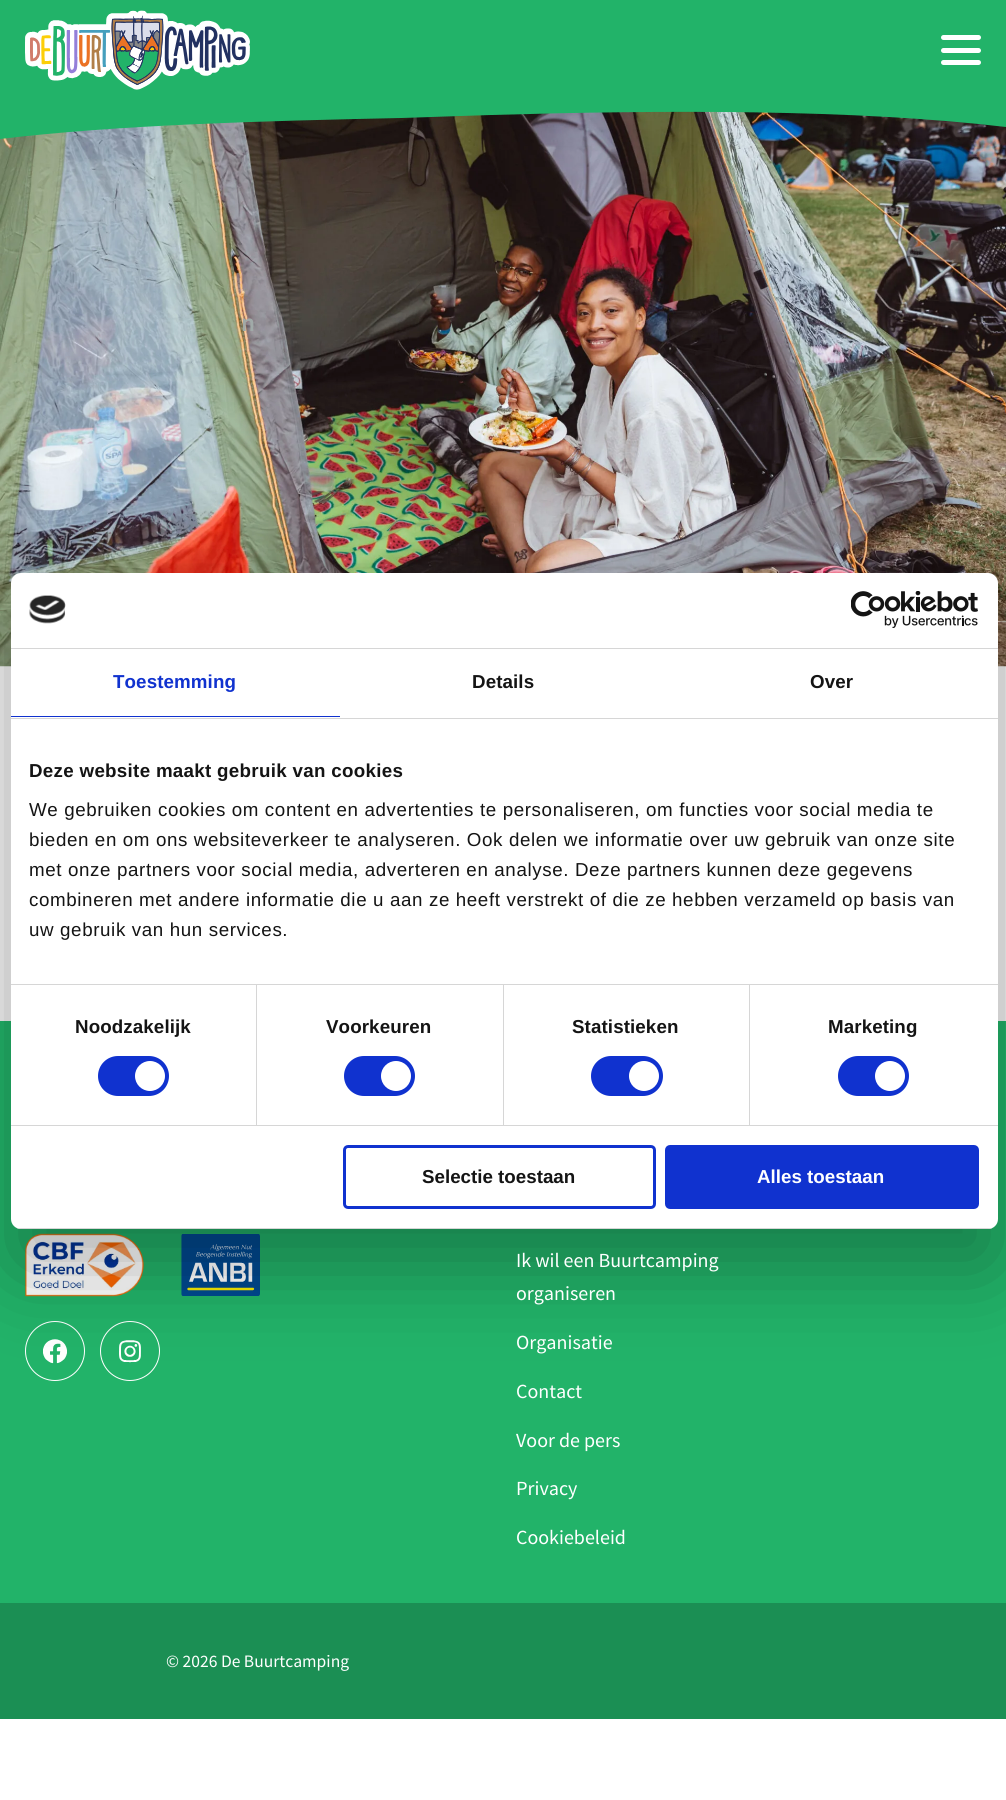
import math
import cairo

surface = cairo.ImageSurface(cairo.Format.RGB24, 1006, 1800)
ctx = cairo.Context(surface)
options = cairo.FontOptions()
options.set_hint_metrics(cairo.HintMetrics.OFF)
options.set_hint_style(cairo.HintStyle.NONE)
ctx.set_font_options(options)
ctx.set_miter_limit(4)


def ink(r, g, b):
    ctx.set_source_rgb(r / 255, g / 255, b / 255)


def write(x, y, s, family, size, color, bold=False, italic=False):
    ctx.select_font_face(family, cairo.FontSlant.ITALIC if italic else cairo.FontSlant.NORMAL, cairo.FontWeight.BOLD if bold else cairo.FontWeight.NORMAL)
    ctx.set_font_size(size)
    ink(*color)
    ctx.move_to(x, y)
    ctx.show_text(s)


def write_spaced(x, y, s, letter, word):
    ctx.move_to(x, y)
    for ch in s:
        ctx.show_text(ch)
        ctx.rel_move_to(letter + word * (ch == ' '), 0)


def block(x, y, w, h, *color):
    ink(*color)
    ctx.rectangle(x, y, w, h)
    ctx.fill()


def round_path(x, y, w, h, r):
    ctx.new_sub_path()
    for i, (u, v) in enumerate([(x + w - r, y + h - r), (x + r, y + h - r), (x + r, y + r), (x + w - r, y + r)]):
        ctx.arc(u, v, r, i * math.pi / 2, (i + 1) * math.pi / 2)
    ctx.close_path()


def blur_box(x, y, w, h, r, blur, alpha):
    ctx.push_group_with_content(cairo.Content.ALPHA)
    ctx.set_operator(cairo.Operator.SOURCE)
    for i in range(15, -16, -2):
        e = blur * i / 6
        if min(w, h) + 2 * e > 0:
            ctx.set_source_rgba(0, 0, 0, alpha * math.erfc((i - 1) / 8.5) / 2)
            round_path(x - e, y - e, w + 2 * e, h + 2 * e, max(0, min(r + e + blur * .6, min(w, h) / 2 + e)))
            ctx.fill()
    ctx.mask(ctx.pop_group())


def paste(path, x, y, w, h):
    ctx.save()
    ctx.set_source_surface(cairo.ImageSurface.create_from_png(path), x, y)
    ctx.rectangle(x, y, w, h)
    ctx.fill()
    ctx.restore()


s1 = dict(family="Source Sans Pro SemiBold", size=25, color=(160, 170, 168))
s2 = dict(family="Liberation Sans", size=18.75, color=(20, 20, 20), bold=True)
s3 = dict(family="Liberation Sans", size=18.75, color=(255, 255, 255), bold=True)
s4 = dict(family="Source Sans Pro", size=20, color=(255, 255, 255))
s5 = dict(family="Source Sans Pro", size=17.5, color=(255, 255, 255))

ink(255, 255, 255)
ctx.paint()
block(0, 666, 1006, 355, 243, 243, 243)
paste("pic1.png", 0, 111, 1006, 556)
block(0, 0, 1006, 98, 34, 179, 105)
ctx.new_path()
ctx.move_to(1006, 98)
ctx.line_to(0, 98)
ctx.line_to(0, 139)
ctx.curve_to(116, 125, 260, 121, 401, 118)
ctx.line_to(491, 115)
ctx.curve_to(661, 110, 854, 109, 1006, 127)
ctx.close_path()
ctx.fill()
paste("pic2.png", 25, 10, 225, 80)
ink(255, 255, 255)
round_path(941, 35, 40, 5, 2.5)
ctx.fill()
round_path(941, 48, 40, 5, 2.5)
ctx.fill()
round_path(941, 60, 40, 5, 2.5)
ctx.fill()
write(241, 331, "n", **s1)
block(0, 1021, 1006, 582, 34, 179, 105)
paste("pic5.png", 25, 1233, 119, 64)
paste("pic6.png", 181, 1234, 79, 62)
ctx.arc(55, 1351, 29.5, 0, 2 * math.pi)
ink(255, 255, 255)
ctx.set_line_width(1)
ctx.stroke()
paste("pic7.png", 43, 1339, 24, 25)
ctx.arc(130, 1351, 29.5, 0, 2 * math.pi)
ctx.stroke()
paste("pic8.png", 119, 1340, 22, 23)
ink(0, 0, 0)
blur_box(11, 613, 987, 656, 10, 42.5, 0.3)
ink(255, 255, 255)
round_path(11, 573, 987, 656, 10)
ctx.fill()
block(11, 648, 987, 1, 214, 214, 214)
paste("pic3.png", 29, 595, 37, 29)
paste("pic4.png", 851, 591, 127, 37)
block(11, 718, 987, 1, 214, 214, 214)
block(11, 716, 329, 1, 16, 50, 207)
ctx.select_font_face("Liberation Sans", cairo.FontSlant.NORMAL, cairo.FontWeight.BOLD)
ctx.set_font_size(18.75)
write_spaced(113, 688, "Toestemming", 0.1, 0)
ink(20, 20, 20)
write_spaced(472, 688, "Details", 0.1, 0)
write_spaced(810, 688, "Over", 0.1, 0)
block(11, 984, 987, 1, 214, 214, 214)
ink(20, 20, 20)
write_spaced(29, 777, "Deze website maakt gebruik van cookies", 0.3, 0)
ctx.select_font_face("Liberation Sans")
write_spaced(29, 816, "We gebruiken cookies om content en advertenties te personaliseren, om functies voor social media te", 0.62, 0)
write_spaced(29, 846, "bieden en om ons websiteverkeer te analyseren. Ook delen we informatie over uw gebruik van onze site", 0.62, 0)
write_spaced(29, 876, "met onze partners voor social media, adverteren en analyse. Deze partners kunnen deze gegevens", 0.62, 0)
write_spaced(29, 906, "combineren met andere informatie die u aan ze heeft verstrekt of die ze hebben verzameld op basis van", 0.62, 0)
write_spaced(29, 936, "uw gebruik van hun services.", 0.62, 0)
block(11, 1125, 987, 1, 214, 214, 214)
block(256, 985, 1, 140, 214, 214, 214)
ctx.select_font_face("Liberation Sans", cairo.FontSlant.NORMAL, cairo.FontWeight.BOLD)
ink(20, 20, 20)
write_spaced(75, 1033, "Noodzakelijk", 0.1, 0)
ink(16, 50, 207)
round_path(98, 1056, 71, 40, 20)
ctx.fill()
ink(255, 255, 255)
ctx.arc(150, 1076, 15, 0, 2 * math.pi)
ctx.fill()
block(503, 985, 1, 140, 214, 214, 214)
ink(20, 20, 20)
write_spaced(326, 1033, "Voorkeuren", 0.1, 0)
ink(16, 50, 207)
round_path(344, 1056, 71, 40, 20)
ctx.fill()
ink(255, 255, 255)
ctx.arc(396, 1076, 15, 0, 2 * math.pi)
ctx.fill()
block(749, 985, 1, 140, 214, 214, 214)
ink(20, 20, 20)
write_spaced(572, 1033, "Statistieken", 0.1, 0)
ink(16, 50, 207)
round_path(591, 1056, 72, 40, 20)
ctx.fill()
ink(255, 255, 255)
ctx.arc(644, 1076, 15, 0, 2 * math.pi)
ctx.fill()
ink(20, 20, 20)
write_spaced(828, 1033, "Marketing", 0.1, 0)
ink(16, 50, 207)
round_path(838, 1056, 71, 40, 20)
ctx.fill()
ink(255, 255, 255)
ctx.arc(890, 1076, 15, 0, 2 * math.pi)
ctx.fill()
ctx.save()
round_path(11, 573, 987, 656, 10)
ctx.clip()
block(11, 1228, 987, 1, 214, 214, 214)
ctx.restore()
round_path(344.5, 1146.5, 310, 61, 3.5)
ink(16, 50, 207)
ctx.set_line_width(3)
ctx.stroke()
write(422, 1183, "Selectie toestaan", **s2)
ink(16, 50, 207)
round_path(666.5, 1146.5, 311, 61, 3.5)
ctx.fill_preserve()
ctx.stroke()
write(757, 1183, "Alles toestaan", **s3)
write(516, 1267, "Ik wil een Buurtcamping", **s4)
write(516, 1300, "organiseren", **s4)
write(516, 1349, "Organisatie", **s4)
write(516, 1398, "Contact", **s4)
write(516, 1447, "Voor de pers", **s4)
write(516, 1495, "Privacy", **s4)
write(516, 1544, "Cookiebeleid", **s4)
block(0, 1603, 1006, 116, 27, 143, 84)
write(166, 1667, "© 2026 De Buurtcamping", **s5)
surface.write_to_png("screenshot.png")
